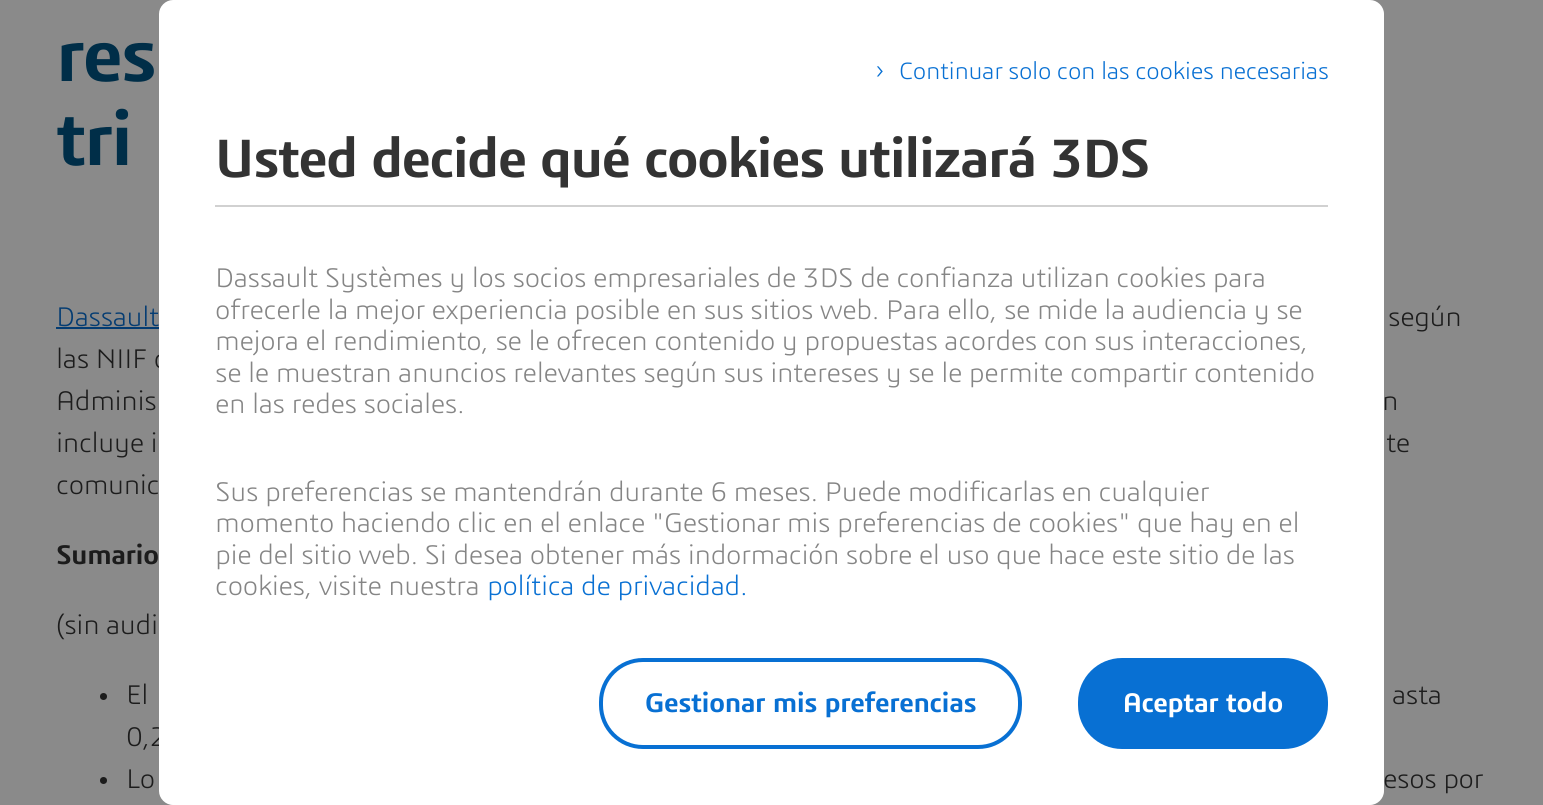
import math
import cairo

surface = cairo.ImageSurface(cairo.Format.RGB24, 1543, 805)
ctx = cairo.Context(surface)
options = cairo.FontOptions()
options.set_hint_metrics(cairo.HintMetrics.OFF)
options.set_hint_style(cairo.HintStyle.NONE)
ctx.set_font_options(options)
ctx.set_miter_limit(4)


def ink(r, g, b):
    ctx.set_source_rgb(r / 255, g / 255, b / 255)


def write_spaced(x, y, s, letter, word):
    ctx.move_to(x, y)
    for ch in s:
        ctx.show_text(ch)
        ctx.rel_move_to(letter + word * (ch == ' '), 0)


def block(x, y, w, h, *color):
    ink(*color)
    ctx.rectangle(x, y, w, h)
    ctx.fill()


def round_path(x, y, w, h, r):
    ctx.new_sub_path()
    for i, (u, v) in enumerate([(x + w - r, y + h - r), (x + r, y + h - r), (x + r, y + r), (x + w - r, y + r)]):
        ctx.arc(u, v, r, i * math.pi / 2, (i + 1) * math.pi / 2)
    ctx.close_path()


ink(138, 138, 138)
ctx.paint()
ctx.select_font_face("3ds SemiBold")
ctx.set_font_size(77)
ink(0, 46, 72)
write_spaced(56, 81, "res", -2, 0)
write_spaced(56, 165, "tri", -2, 0)
ctx.select_font_face("3ds Light")
ctx.set_font_size(28)
ink(4, 60, 114)
write_spaced(56, 326, "Dassault", -0.35, 0)
block(56, 327, 103, 2, 4, 60, 114)
ink(28, 28, 28)
write_spaced(1388, 326, "según", -0.35, 0)
write_spaced(56, 368, "las NIIF c", -0.35, 0)
write_spaced(56, 410, "Adminis", -0.35, 0)
write_spaced(1382, 410, "n", -0.35, 0)
write_spaced(56, 452, "incluye i", -0.35, 0)
write_spaced(1386, 452, "te", -0.35, 0)
write_spaced(56, 494, "comunic", -0.35, 0)
ctx.select_font_face("3ds SemiBold")
write_spaced(56, 564, "Sumario", -0.35, 0)
ctx.select_font_face("3ds Light")
write_spaced(56, 634, "(sin audi", -0.35, 0)
ctx.new_path()
ctx.arc(103.5, 696.5, 3.5, 0, 2 * math.pi)
ctx.fill()
write_spaced(126, 704, "El", -0.35, 0)
write_spaced(1392, 704, "asta", -0.35, 0)
write_spaced(126, 746, "0,2", -0.35, 0)
ctx.new_path()
ctx.arc(103.5, 780.5, 3.5, 0, 2 * math.pi)
ctx.fill()
write_spaced(126, 788, "Lo", -0.35, 0)
write_spaced(1383, 788, "esos por", -0.35, 0)
ink(255, 255, 255)
ctx.new_path()
ctx.move_to(173, 0)
ctx.line_to(1370, 0)
ctx.curve_to(1377.5, 0, 1384, 6.5, 1384, 14)
ctx.line_to(1384, 658)
ctx.line_to(159, 658)
ctx.line_to(159, 14)
ctx.curve_to(159, 6.5, 165.5, 0, 173, 0)
ctx.close_path()
ctx.fill()
block(215, 205, 1113, 2, 209, 209, 209)
ink(8, 112, 211)
write_spaced(875, 79, "›", -0.35, 0)
ctx.set_font_size(24.5)
write_spaced(899, 79, "Continuar solo con las cookies necesarias", -0.35, 0)
ctx.select_font_face("3ds SemiBold")
ctx.set_font_size(56)
ink(51, 51, 51)
write_spaced(215, 177, "Usted decide qué cookies utilizará 3DS", -1.4, 0)
ctx.select_font_face("3ds Light")
ctx.set_font_size(28)
ink(133, 133, 133)
write_spaced(215, 287, "Dassault Systèmes y los socios empresariales de 3DS de confianza utilizan cookies para", -0.35, 0)
write_spaced(215, 319, "ofrecerle la mejor experiencia posible en sus sitios web. Para ello, se mide la audiencia y se", -0.35, 0)
write_spaced(215, 350, "mejora el rendimiento, se le ofrecen contenido y propuestas acordes con sus interacciones,", -0.35, 0)
write_spaced(215, 382, "se le muestran anuncios relevantes según sus intereses y se le permite compartir contenido", -0.35, 0)
write_spaced(215, 413, "en las redes sociales.", -0.35, 0)
write_spaced(215, 501, "Sus preferencias se mantendrán durante 6 meses. Puede modificarlas en cualquier", -0.35, 0)
write_spaced(215, 532, "momento haciendo clic en el enlace \"Gestionar mis preferencias de cookies\" que hay en el", -0.35, 0)
write_spaced(215, 564, "pie del sitio web. Si desea obtener más indormación sobre el uso que hace este sitio de las", -0.35, 0)
write_spaced(215, 595, "cookies, visite nuestra", -0.35, 0)
ink(8, 112, 211)
write_spaced(487, 595, "política de privacidad.", -0.35, 0)
ink(255, 255, 255)
ctx.new_path()
ctx.move_to(159, 658)
ctx.line_to(1384, 658)
ctx.line_to(1384, 791)
ctx.curve_to(1384, 798.5, 1377.5, 805, 1370, 805)
ctx.line_to(173, 805)
ctx.curve_to(165.5, 805, 159, 798.5, 159, 791)
ctx.close_path()
ctx.fill()
round_path(601, 660, 419, 87, 42)
ink(8, 112, 211)
ctx.set_line_width(4)
ctx.stroke()
ctx.select_font_face("3ds SemiBold")
write_spaced(645, 712, "Gestionar mis preferencias", -0.35, 0)
round_path(1078, 658, 250, 91, 44)
ctx.fill()
ink(255, 255, 255)
write_spaced(1123, 712, "Aceptar todo", -0.35, 0)
surface.write_to_png("screenshot.png")
